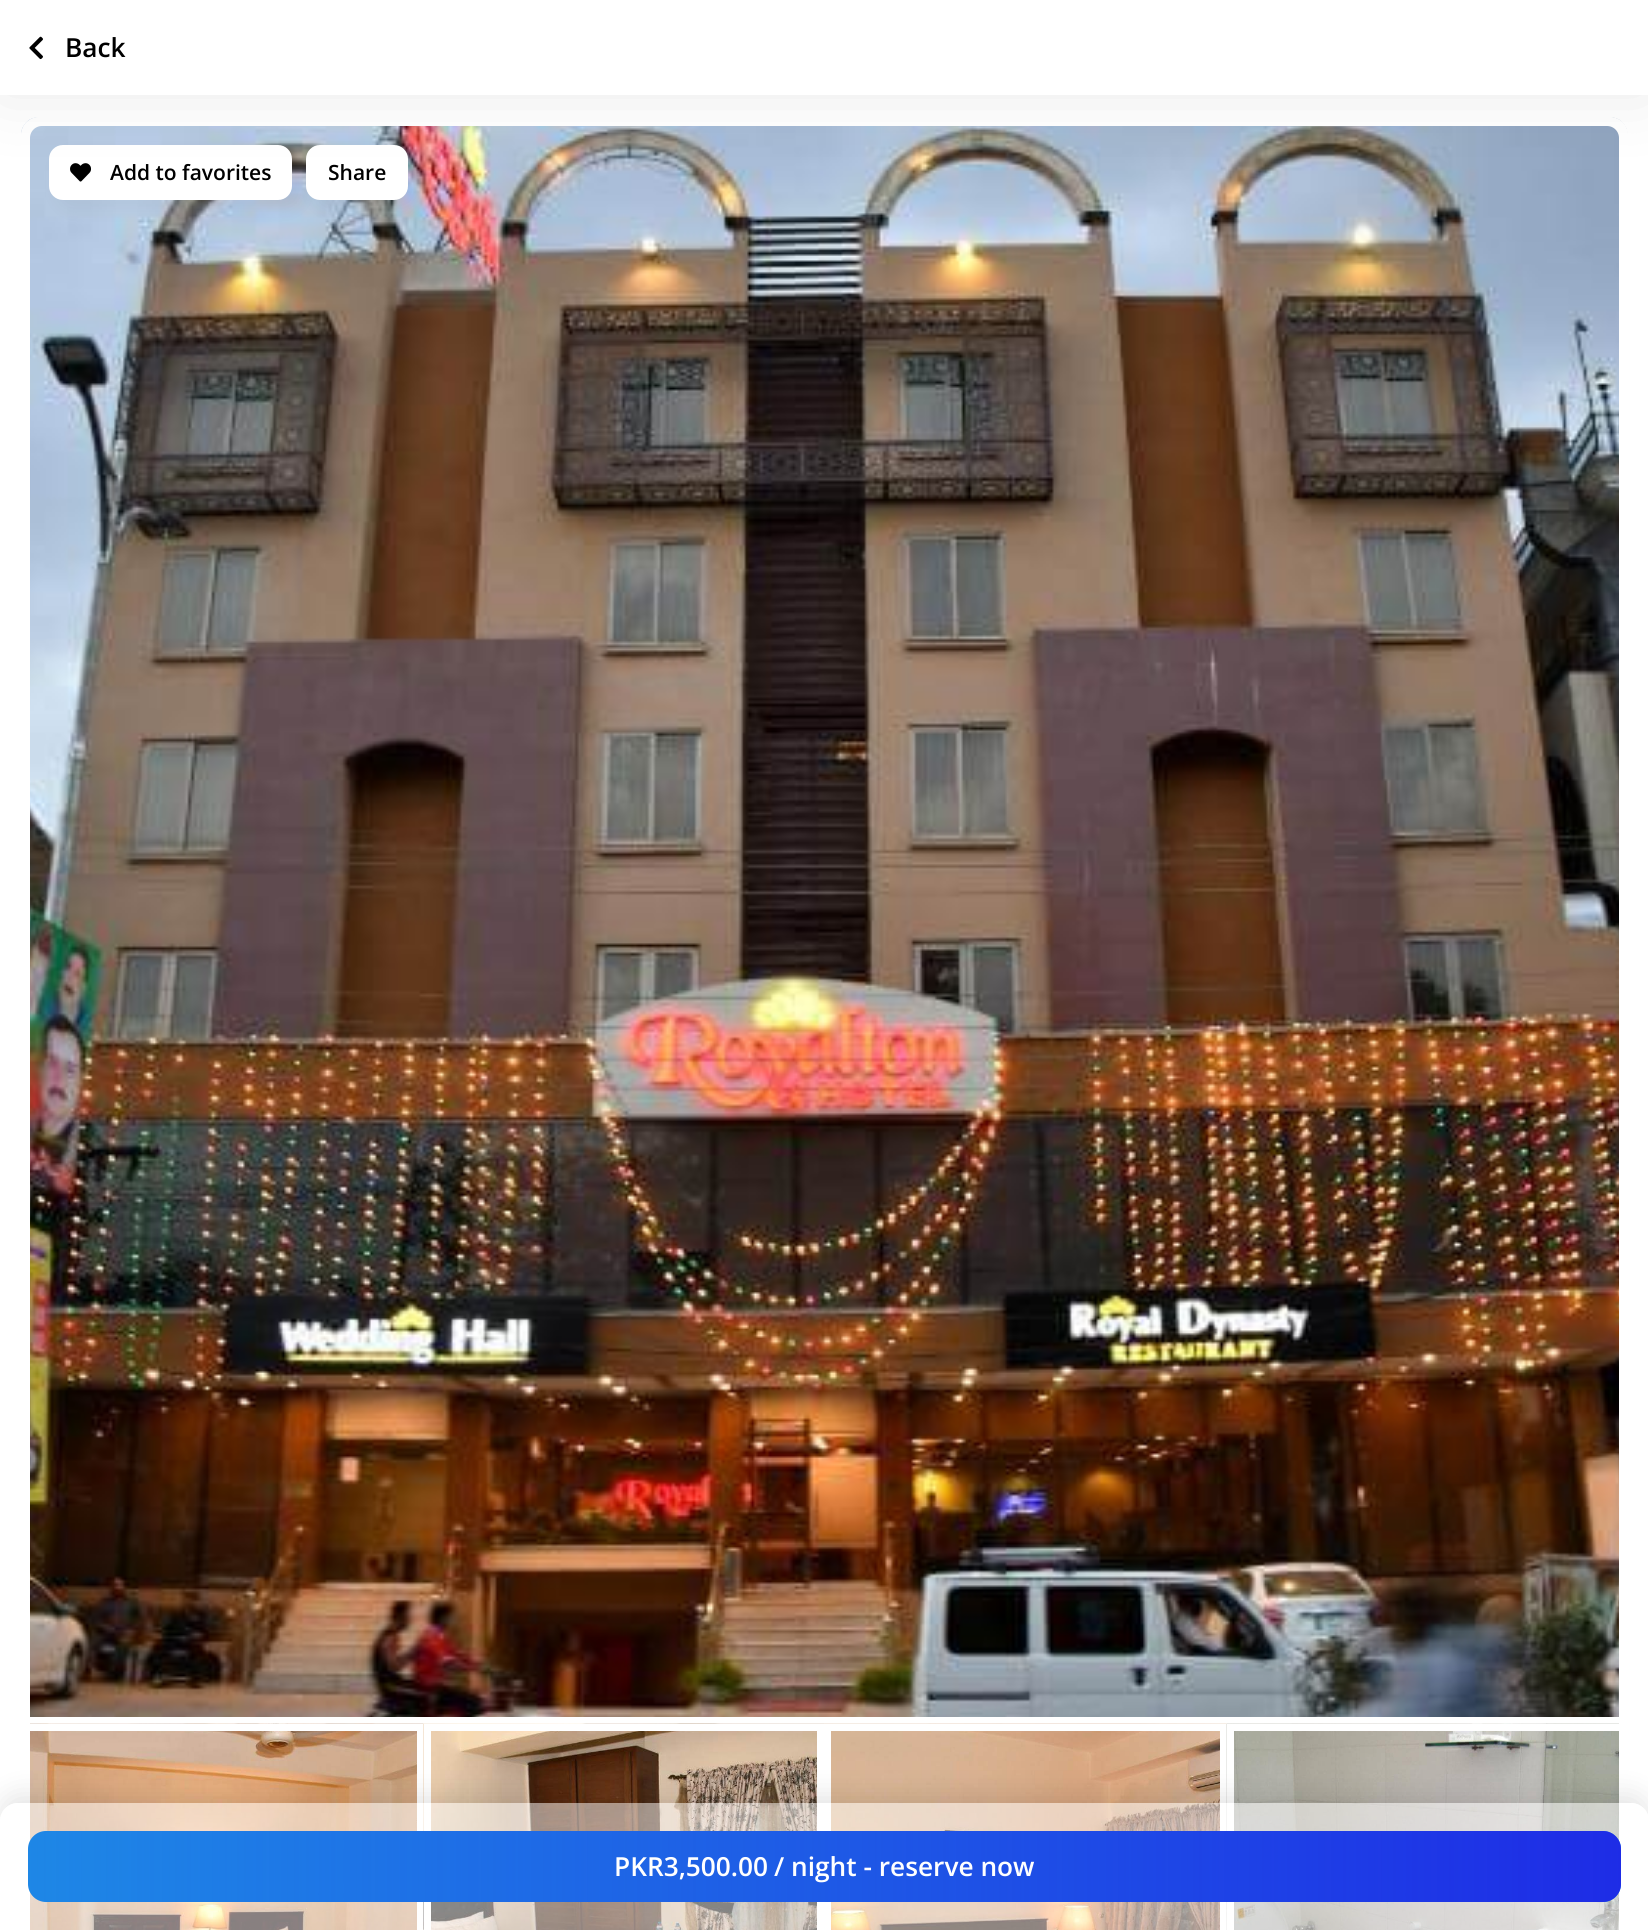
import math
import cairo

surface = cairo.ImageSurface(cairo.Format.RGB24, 1648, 1930)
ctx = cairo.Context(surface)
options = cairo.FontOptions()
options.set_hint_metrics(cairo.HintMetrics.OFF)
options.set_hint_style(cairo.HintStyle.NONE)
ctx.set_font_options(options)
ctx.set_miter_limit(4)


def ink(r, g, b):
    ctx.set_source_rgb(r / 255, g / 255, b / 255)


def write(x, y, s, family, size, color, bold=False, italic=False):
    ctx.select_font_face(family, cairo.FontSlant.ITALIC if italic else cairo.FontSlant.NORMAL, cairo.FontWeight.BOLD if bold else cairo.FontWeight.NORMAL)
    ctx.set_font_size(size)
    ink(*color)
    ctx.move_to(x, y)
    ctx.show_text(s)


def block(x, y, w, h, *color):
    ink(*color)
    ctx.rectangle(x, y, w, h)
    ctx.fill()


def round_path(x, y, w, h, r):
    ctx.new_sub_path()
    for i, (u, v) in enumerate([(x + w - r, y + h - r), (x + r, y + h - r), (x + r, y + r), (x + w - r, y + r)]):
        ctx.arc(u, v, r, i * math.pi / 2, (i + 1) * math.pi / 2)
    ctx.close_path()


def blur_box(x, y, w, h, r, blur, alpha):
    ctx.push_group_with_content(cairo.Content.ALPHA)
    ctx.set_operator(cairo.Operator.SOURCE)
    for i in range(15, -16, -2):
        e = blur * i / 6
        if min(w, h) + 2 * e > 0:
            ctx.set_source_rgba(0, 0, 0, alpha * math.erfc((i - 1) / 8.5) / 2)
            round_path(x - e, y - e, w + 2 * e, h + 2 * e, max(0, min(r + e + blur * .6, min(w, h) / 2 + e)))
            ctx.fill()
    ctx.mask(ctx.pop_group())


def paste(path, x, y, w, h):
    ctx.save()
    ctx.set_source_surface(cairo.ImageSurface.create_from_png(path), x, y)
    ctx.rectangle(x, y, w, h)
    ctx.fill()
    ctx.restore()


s1 = dict(family="Open Sans SemiBold", size=26.25, color=(0, 0, 0))
s2 = dict(family="Open Sans SemiBold", size=21, color=(0, 0, 0))
s3 = dict(family="Open Sans SemiBold", size=26.25, color=(255, 255, 255))

ink(255, 255, 255)
ctx.paint()
paste("pic2.png", 21, 117, 1607, 1600)
ink(255, 255, 255)
ctx.set_fill_rule(cairo.FillRule.EVEN_ODD)
ctx.new_path()
ctx.move_to(39, 117)
ctx.curve_to(29, 117, 21, 125, 21, 135)
ctx.line_to(21, 1724)
ctx.line_to(1628, 1724)
ctx.line_to(1628, 135)
ctx.curve_to(1628, 125, 1620, 117, 1610, 117)
ctx.close_path()
ctx.move_to(28, 124)
ctx.line_to(28, 1717)
ctx.line_to(1621, 1717)
ctx.line_to(1621, 124)
ctx.close_path()
ctx.fill()
paste("pic3.png", 30, 1723, 394, 207)
ctx.new_path()
ctx.move_to(21, 1724)
ctx.line_to(21, 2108)
ctx.curve_to(21, 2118, 29, 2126, 39, 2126)
ctx.line_to(424, 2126)
ctx.line_to(424, 1724)
ctx.close_path()
ctx.move_to(28, 1731)
ctx.line_to(28, 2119)
ctx.line_to(417, 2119)
ctx.line_to(417, 1731)
ctx.close_path()
ctx.fill()
paste("pic4.png", 423, 1723, 402, 207)
ctx.rectangle(427.5, 1727.5, 393, 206)
ctx.set_line_width(7)
ctx.stroke()
paste("pic5.png", 824, 1723, 403, 207)
ctx.rectangle(827.5, 1727.5, 396, 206)
ctx.stroke()
paste("pic6.png", 1226, 1723, 393, 207)
ctx.new_path()
ctx.move_to(1227, 1724)
ctx.line_to(1227, 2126)
ctx.line_to(1610, 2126)
ctx.curve_to(1620, 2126, 1628, 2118, 1628, 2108)
ctx.line_to(1628, 1724)
ctx.close_path()
ctx.move_to(1234, 1731)
ctx.line_to(1234, 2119)
ctx.line_to(1621, 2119)
ctx.line_to(1621, 1731)
ctx.close_path()
ctx.fill()
ink(0, 0, 0)
blur_box(58, 154, 243, 54, 14, 9, 0.05)
ink(255, 255, 255)
round_path(49, 145, 243, 55, 14)
ctx.fill()
paste("pic7.png", 70, 163, 21, 19)
ink(0, 0, 0)
blur_box(315, 154, 102, 54, 14, 9, 0.05)
ink(255, 255, 255)
round_path(306, 145, 102, 55, 14)
ctx.fill()
round_path(25.5, 121.5, 1598, 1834, 16.5)
ctx.set_line_width(9)
ctx.stroke()
ink(0, 0, 0)
blur_box(0, -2, 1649, 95, 0, 35, 0.09)
block(0, 0, 1648, 95, 255, 255, 255)
paste("pic1.png", 29, 36, 14, 24)
write(65, 57, "Back", **s1)
write(110, 180, "Add to favorites", **s2)
write(328, 180, "Share", **s2)
ctx.save()
ctx.new_path()
ctx.move_to(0, 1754)
ctx.line_to(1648, 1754)
ctx.line_to(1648, 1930)
ctx.line_to(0, 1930)
ctx.close_path()
ctx.move_to(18, 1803)
ctx.line_to(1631, 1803)
ctx.curve_to(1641, 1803, 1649, 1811, 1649, 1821)
ctx.line_to(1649, 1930)
ctx.line_to(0, 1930)
ctx.line_to(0, 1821)
ctx.curve_to(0, 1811, 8, 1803, 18, 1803)
ctx.close_path()
ctx.clip()
ink(0, 0, 0)
blur_box(0, 1794, 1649, 128, 18, 13, 0.1)
ctx.restore()
ctx.set_source_rgba(1, 1, 1, 0.5)
ctx.new_path()
ctx.move_to(18, 1803)
ctx.line_to(1631, 1803)
ctx.curve_to(1641, 1803, 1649, 1811, 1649, 1821)
ctx.line_to(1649, 1930)
ctx.line_to(0, 1930)
ctx.line_to(0, 1821)
ctx.curve_to(0, 1811, 8, 1803, 18, 1803)
ctx.close_path()
ctx.fill()
ink(30, 135, 230)
round_path(28, 1831, 1593, 71, 18)
ctx.fill()
gradient = cairo.LinearGradient(28, 1866, 1621, 1866)
gradient.add_color_stop_rgba(0, 0.118, 0.173, 0.902, 0)
gradient.add_color_stop_rgba(1, 0.118, 0.173, 0.902, 1)
ctx.set_source(gradient)
round_path(28, 1831, 1593, 71, 18)
ctx.fill()
write(614, 1876, "PKR3,500.00", **s3)
write(774, 1876, "/ night - reserve now", **s3)
surface.write_to_png("screenshot.png")
